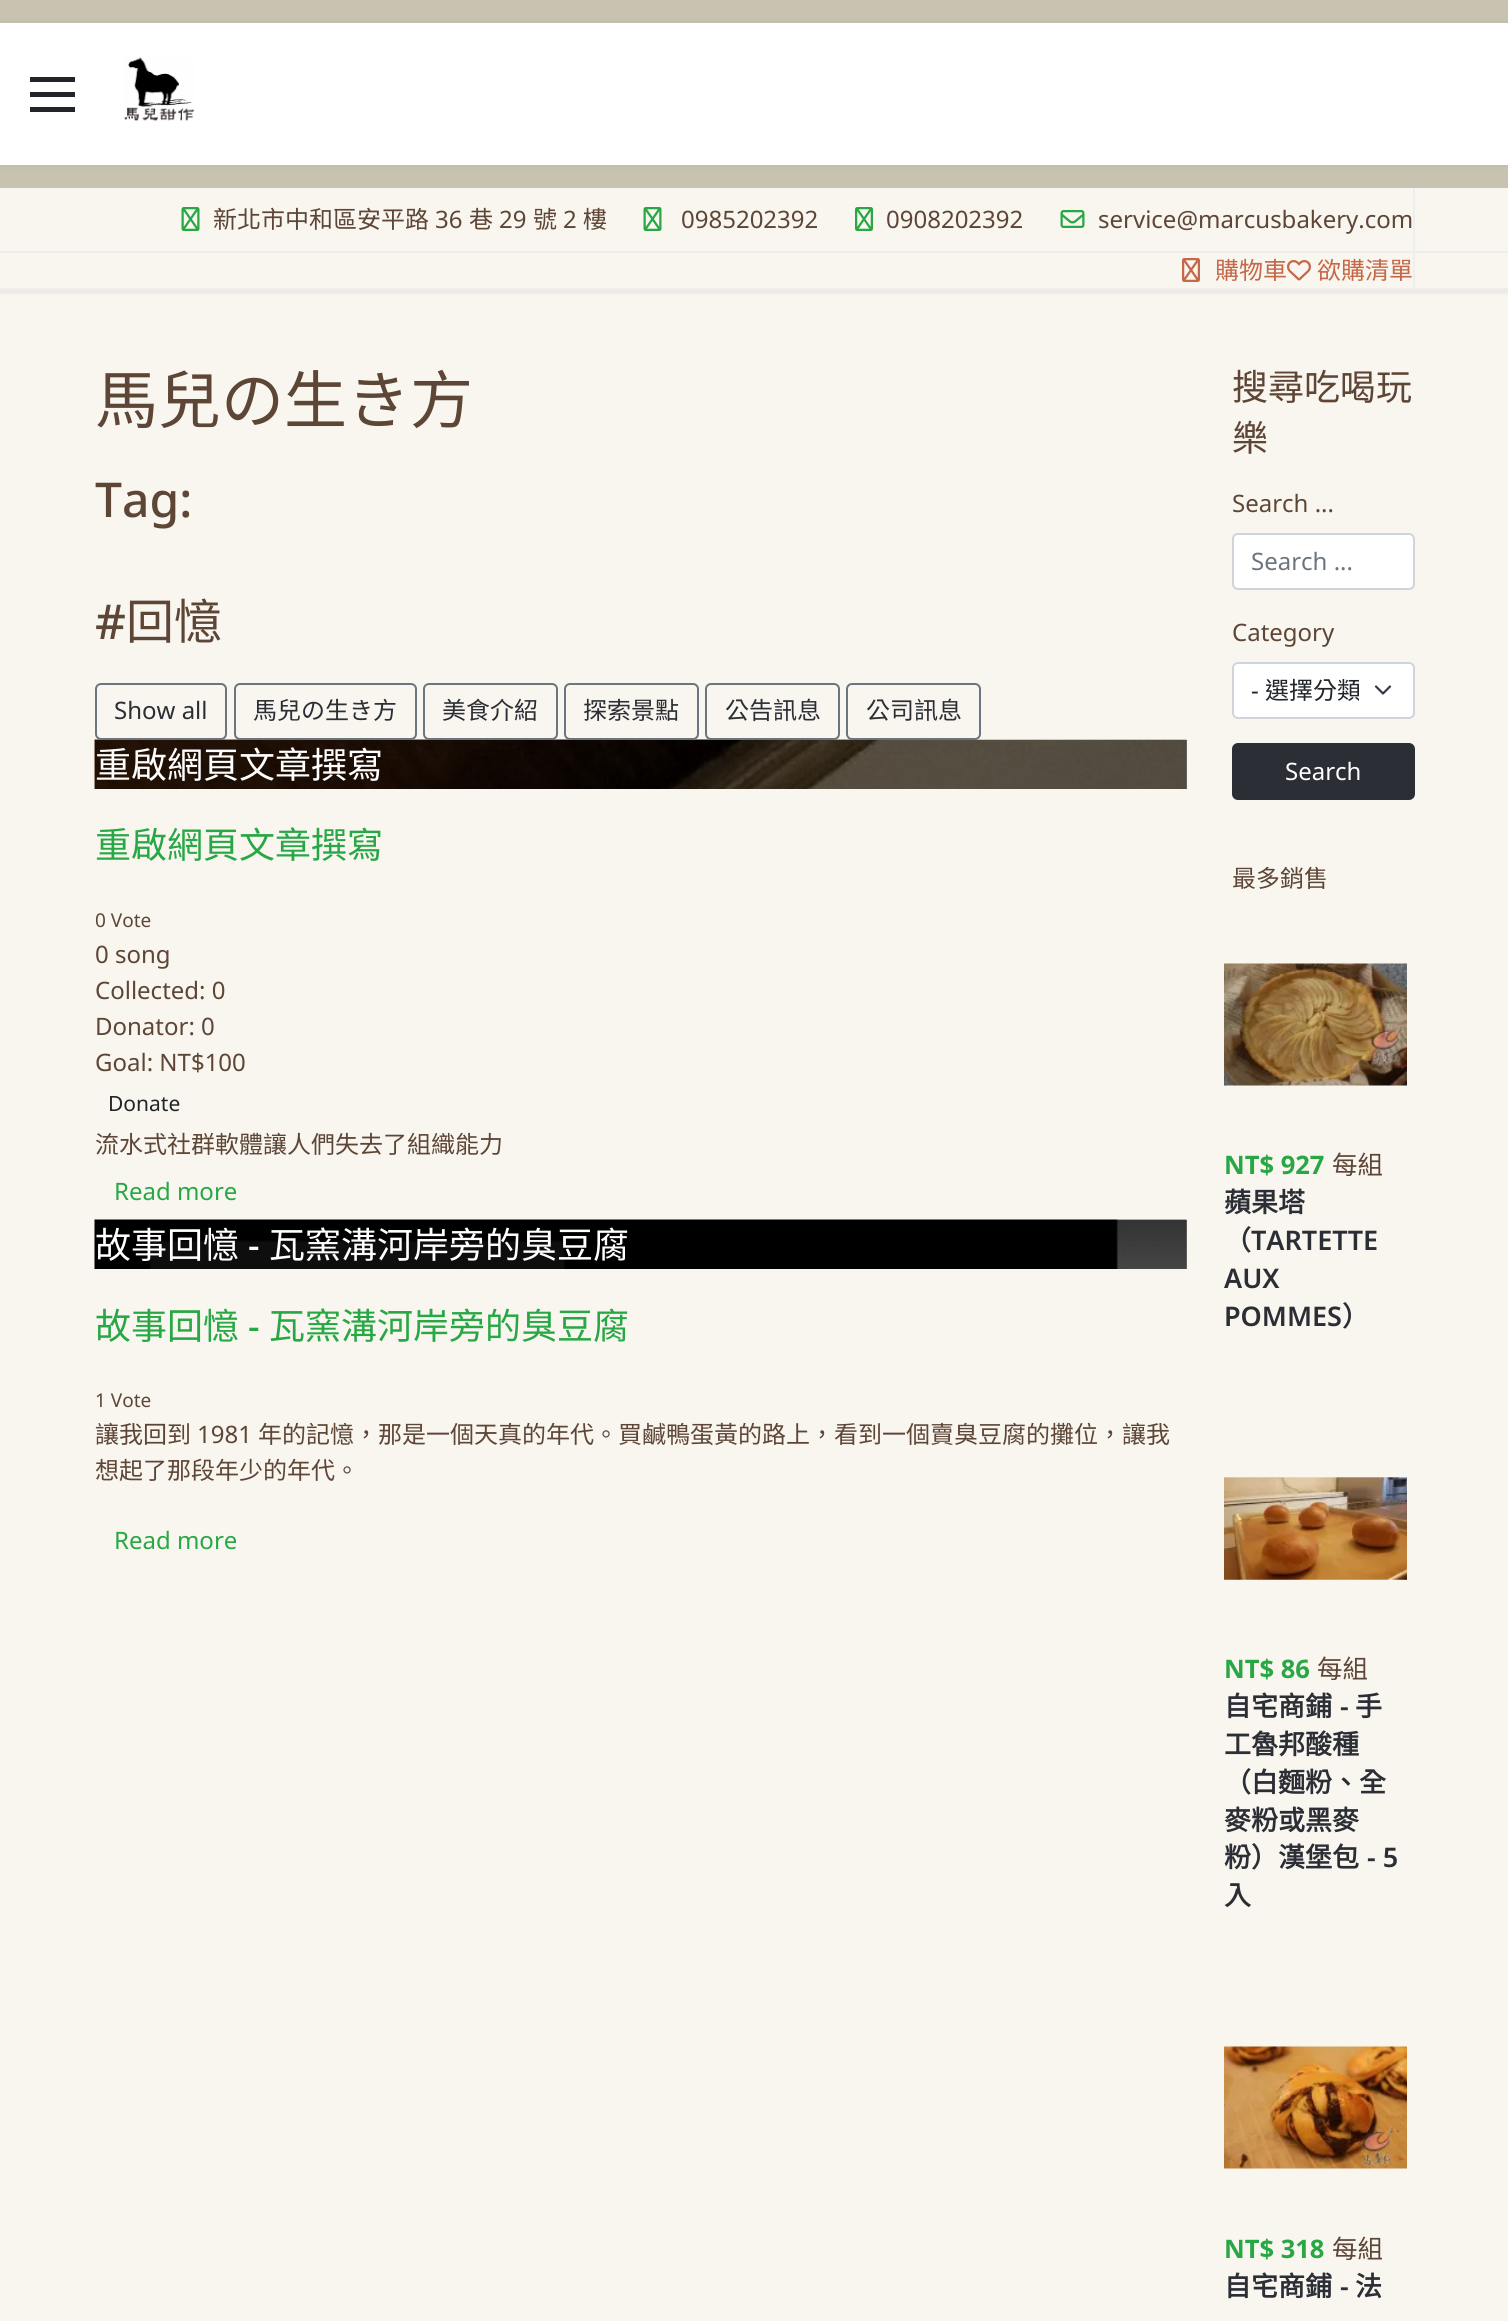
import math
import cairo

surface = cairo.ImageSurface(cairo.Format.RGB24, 1508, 2321)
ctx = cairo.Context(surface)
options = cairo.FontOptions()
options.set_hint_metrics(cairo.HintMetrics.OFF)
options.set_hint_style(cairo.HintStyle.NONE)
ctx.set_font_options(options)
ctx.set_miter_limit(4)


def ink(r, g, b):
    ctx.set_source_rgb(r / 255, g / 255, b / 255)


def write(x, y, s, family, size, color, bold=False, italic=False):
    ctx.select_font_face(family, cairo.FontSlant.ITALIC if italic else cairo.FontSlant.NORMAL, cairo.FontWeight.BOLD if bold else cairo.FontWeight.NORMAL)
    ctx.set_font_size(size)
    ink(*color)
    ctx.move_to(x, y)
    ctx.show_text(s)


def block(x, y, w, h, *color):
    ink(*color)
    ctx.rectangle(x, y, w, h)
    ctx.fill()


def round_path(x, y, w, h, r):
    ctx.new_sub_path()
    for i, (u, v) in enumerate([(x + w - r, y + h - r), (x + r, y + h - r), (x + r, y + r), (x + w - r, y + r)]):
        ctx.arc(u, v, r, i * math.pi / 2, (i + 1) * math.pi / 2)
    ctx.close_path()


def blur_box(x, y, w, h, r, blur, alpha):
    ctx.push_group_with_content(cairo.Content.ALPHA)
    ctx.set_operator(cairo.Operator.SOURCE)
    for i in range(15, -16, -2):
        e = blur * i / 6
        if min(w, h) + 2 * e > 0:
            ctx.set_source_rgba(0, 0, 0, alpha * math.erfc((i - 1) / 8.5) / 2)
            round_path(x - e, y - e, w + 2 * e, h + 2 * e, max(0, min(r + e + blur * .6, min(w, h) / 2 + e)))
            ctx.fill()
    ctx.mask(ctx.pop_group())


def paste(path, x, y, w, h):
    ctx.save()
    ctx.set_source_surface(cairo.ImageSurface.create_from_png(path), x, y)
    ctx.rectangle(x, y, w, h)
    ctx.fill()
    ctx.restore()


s1 = dict(family="Noto Sans CJK TC", size=24, color=(94, 70, 55))
s2 = dict(family="Noto Sans", size=24, color=(94, 70, 55))
s3 = dict(family="Noto Sans CJK TC", size=24, color=(196, 104, 72))
s4 = dict(family="Noto Sans CJK TC", size=63, color=(94, 70, 55))
s5 = dict(family="Noto Sans Medium", size=48, color=(94, 70, 55))
s6 = dict(family="Noto Sans CJK TC", size=48, color=(94, 70, 55))
s7 = dict(family="Noto Sans", size=24, color=(44, 46, 54))
s8 = dict(family="Noto Sans CJK TC", size=24, color=(44, 46, 54))
s9 = dict(family="Noto Sans CJK TC", size=36, color=(255, 255, 255))
s10 = dict(family="Noto Sans CJK TC", size=36, color=(40, 167, 69))
s11 = dict(family="Noto Sans", size=19, color=(94, 70, 55))
s12 = dict(family="Noto Sans", size=21, color=(33, 37, 41))
s13 = dict(family="Noto Sans", size=24, color=(40, 167, 69))
s14 = dict(family="Noto Sans Medium", size=36, color=(255, 255, 255))
s15 = dict(family="Noto Sans Medium", size=36, color=(40, 167, 69))
s16 = dict(family="Noto Sans CJK TC", size=36, color=(94, 70, 55))
s17 = dict(family="Noto Sans", size=24, color=(108, 117, 125))
s18 = dict(family="Noto Sans", size=24, color=(33, 37, 41))
s19 = dict(family="Noto Sans CJK TC", size=24, color=(33, 37, 41))
s20 = dict(family="Noto Sans", size=24, color=(255, 255, 255))
s21 = dict(family="Noto Sans", size=25.5, color=(40, 167, 69), bold=True)
s22 = dict(family="Noto Sans CJK TC", size=25.5, color=(94, 70, 55))
s23 = dict(family="Noto Sans CJK TC", size=27, color=(44, 46, 54), bold=True)
s24 = dict(family="Noto Sans SemiBold", size=27, color=(44, 46, 54))

ink(249, 246, 240)
ctx.paint()
block(1186, 1220, 1, 49, 125, 123, 120)
block(1186, 740, 1, 49, 125, 123, 120)
block(0, 0, 1508, 188, 200, 194, 176)
ink(0, 0, 0)
blur_box(0, 23, 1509, 142, 0, 4, 0.06)
block(0, 23, 1508, 142, 255, 255, 255)
block(30, 92, 45, 5, 33, 37, 41)
block(30, 77, 45, 5, 33, 37, 41)
block(30, 107, 45, 5, 33, 37, 41)
paste("pic1.png", 124, 57, 71, 64)
block(0, 251, 1508, 2, 238, 238, 238)
block(1413, 188, 2, 63, 238, 238, 238)
paste("pic2.png", 181, 207, 19, 24)
write(213, 228, "新北市中和區安平路", **s1)
write(435, 228, "36", **s2)
write(469, 228, "巷", **s1)
write(499, 228, "29", **s2)
write(533, 228, "號", **s1)
write(563, 228, "2", **s2)
write(583, 228, "樓", **s1)
paste("pic2.png", 643, 207, 19, 24)
write(681, 228, "0985202392", **s2)
paste("pic3.png", 855, 207, 18, 24)
write(886, 228, "0908202392", **s2)
paste("pic4.png", 1060, 210, 25, 18)
write(1098, 228, "service@marcusbakery.com", **s2)
ctx.save()
ctx.rectangle(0, 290, 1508, 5)
ctx.clip()
ink(0, 0, 0)
blur_box(0, 255, 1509, 38, 0, 3, 0.07)
ctx.restore()
block(0, 288, 1508, 2, 238, 238, 238)
block(1413, 252, 2, 36, 238, 238, 238)
paste("pic5.png", 1182, 258, 18, 24)
write(1215, 279, "購物車", **s3)
paste("pic6.png", 1287, 260, 24, 21)
write(1317, 279, "欲購清單", **s3)
write(95, 423, "馬兒の生き方", **s4)
write(95, 517, "Tag:", **s5)
write(95, 639, "#", **s5)
write(126, 639, "回憶", **s6)
paste("pic7.png", 94, 739, 1093, 50)
round_path(96, 684, 130, 55, 5)
ink(108, 117, 125)
ctx.stroke()
write(114, 719, "Show all", **s7)
round_path(235, 684, 181, 55, 5)
ink(108, 117, 125)
ctx.stroke()
write(253, 719, "馬兒の生き方", **s8)
round_path(424, 684, 133, 55, 5)
ink(108, 117, 125)
ctx.stroke()
write(442, 719, "美食介紹", **s8)
round_path(565, 684, 133, 55, 5)
ink(108, 117, 125)
ctx.stroke()
write(583, 719, "探索景點", **s8)
round_path(706, 684, 133, 55, 5)
ink(108, 117, 125)
ctx.stroke()
write(725, 719, "公告訊息", **s8)
round_path(847, 684, 133, 55, 5)
ink(108, 117, 125)
ctx.stroke()
write(866, 719, "公司訊息", **s8)
write(95, 778, "重啟網頁文章撰寫", **s9)
write(95, 858, "重啟網頁文章撰寫", **s10)
write(95, 927, "0 Vote", **s11)
write(95, 963, "0 song", **s2)
write(95, 999, "Collected: 0", **s2)
write(95, 1035, "Donator: 0", **s2)
write(95, 1071, "Goal: NT$100", **s2)
write(108, 1111, "Donate", **s12)
write(95, 1153, "流水式社群軟體讓人們失去了組織能力", **s1)
write(114, 1200, "Read more", **s13)
paste("pic8.png", 94, 1219, 1093, 50)
write(95, 1258, "故事回憶", **s9)
write(248, 1258, "-", **s14)
write(269, 1258, "瓦窯溝河岸旁的臭豆腐", **s9)
write(95, 1339, "故事回憶", **s10)
write(248, 1339, "-", **s15)
write(269, 1339, "瓦窯溝河岸旁的臭豆腐", **s10)
write(95, 1407, "1 Vote", **s11)
write(95, 1443, "讓我回到", **s1)
write(197, 1443, "1981", **s2)
write(258, 1443, "年的記憶，那是一個天真的年代。買鹹鴨蛋黃的路上，看到一個賣臭豆腐的攤位，讓我", **s1)
write(95, 1479, "想起了那段年少的年代。", **s1)
write(114, 1549, "Read more", **s13)
write(1232, 400, "搜尋吃喝玩", **s16)
write(1232, 451, "樂", **s16)
write(1232, 512, "Search ...", **s2)
ink(255, 255, 255)
round_path(1233, 534, 181, 55, 5)
ctx.fill_preserve()
ink(206, 212, 218)
ctx.stroke()
write(1251, 570, "Search ...", **s17)
write(1232, 641, "Category", **s2)
ink(255, 255, 255)
round_path(1232, 662, 183, 57, 6)
ctx.fill()
ctx.new_path()
ctx.move_to(1376, 686.5)
ctx.line_to(1383, 693.5)
ctx.line_to(1390, 686.5)
ink(52, 58, 64)
ctx.set_line_width(2.2)
ctx.set_line_cap(cairo.LineCap.ROUND)
ctx.set_line_join(cairo.LineJoin.ROUND)
ctx.stroke()
round_path(1233, 663, 181, 55, 5)
ink(206, 212, 218)
ctx.set_line_width(2)
ctx.set_line_cap(cairo.LineCap.BUTT)
ctx.set_line_join(cairo.LineJoin.MITER)
ctx.stroke()
write(1251, 699, "-", **s18)
ctx.save()
ctx.rectangle(1251, 672, 108, 36)
ctx.clip()
write(1265, 699, "選擇分類", **s19)
ctx.restore()
ink(44, 46, 54)
round_path(1233, 744, 181, 55, 5)
ctx.fill_preserve()
ctx.stroke()
write(1285, 780, "Search", **s20)
write(1232, 887, "最多銷售", **s1)
paste("pic9.png", 1224, 963, 183, 123)
write(1224, 1174, "NT$ 927", **s21)
write(1332, 1174, "每組", **s22)
write(1224, 1212, "蘋果塔", **s23)
write(1224, 1250, "（", **s23)
write(1251, 1250, "TARTETTE", **s24)
write(1224, 1288, "AUX", **s24)
write(1224, 1326, "POMMES", **s24)
write(1342, 1326, "）", **s23)
paste("pic10.png", 1224, 1477, 183, 103)
write(1224, 1678, "NT$ 86", **s21)
write(1317, 1678, "每組", **s22)
write(1224, 1716, "自宅商鋪", **s23)
write(1340, 1716, "-", **s24)
write(1355, 1716, "手", **s23)
write(1224, 1754, "工魯邦酸種", **s23)
write(1224, 1792, "（白麵粉、全", **s23)
write(1224, 1830, "麥粉或黑麥", **s23)
write(1224, 1867, "粉）漢堡包", **s23)
write(1367, 1867, "- 5", **s24)
write(1224, 1905, "入", **s23)
paste("pic11.png", 1224, 2046, 183, 123)
write(1224, 2258, "NT$ 318", **s21)
write(1332, 2258, "每組", **s22)
write(1224, 2296, "自宅商鋪", **s23)
write(1340, 2296, "-", **s24)
write(1355, 2296, "法", **s23)
surface.write_to_png("screenshot.png")
